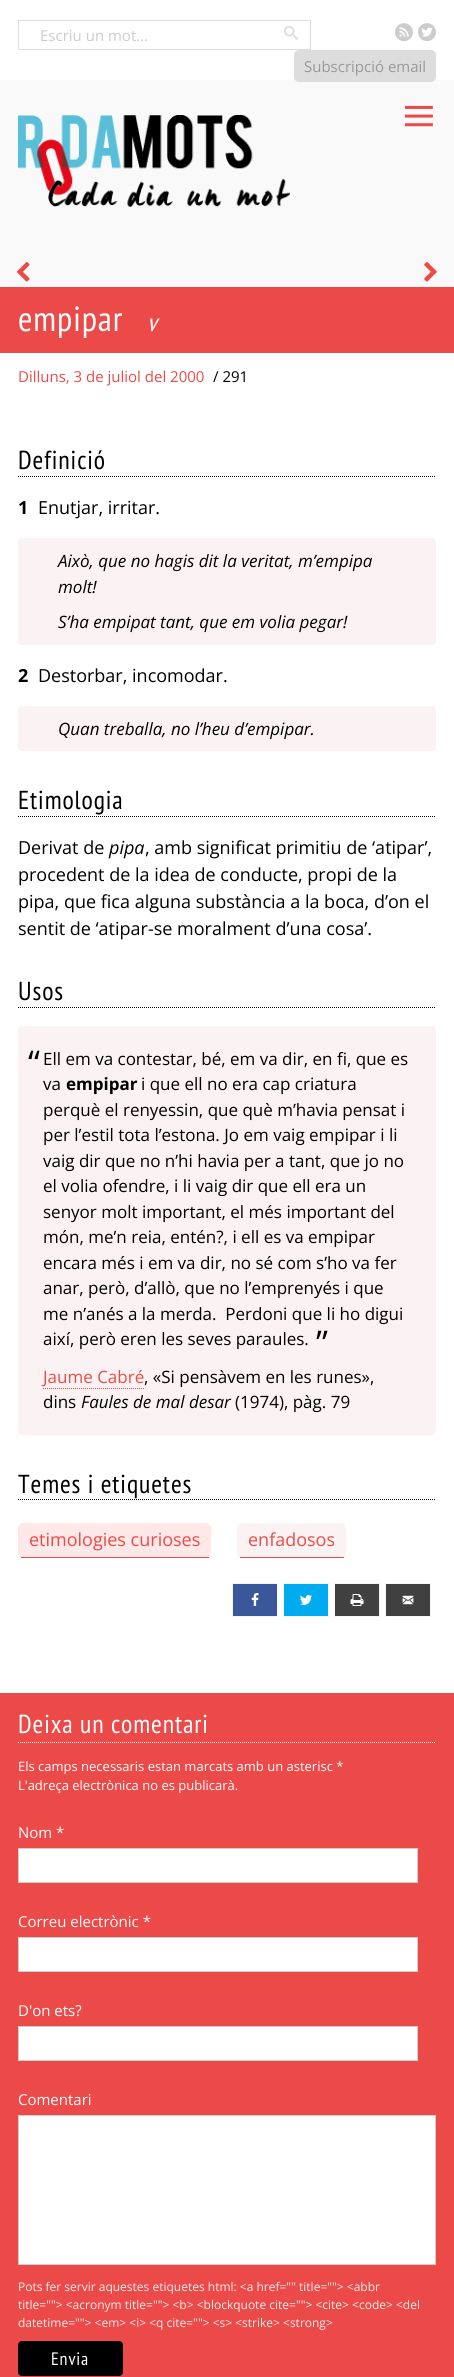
import math
import cairo

surface = cairo.ImageSurface(cairo.Format.RGB24, 454, 2377)
ctx = cairo.Context(surface)
options = cairo.FontOptions()
options.set_hint_metrics(cairo.HintMetrics.OFF)
options.set_hint_style(cairo.HintStyle.NONE)
ctx.set_font_options(options)
ctx.set_miter_limit(4)


def ink(r, g, b):
    ctx.set_source_rgb(r / 255, g / 255, b / 255)


def write(x, y, s, family, size, color, bold=False, italic=False):
    ctx.select_font_face(family, cairo.FontSlant.ITALIC if italic else cairo.FontSlant.NORMAL, cairo.FontWeight.BOLD if bold else cairo.FontWeight.NORMAL)
    ctx.set_font_size(size)
    ink(*color)
    ctx.move_to(x, y)
    ctx.show_text(s)


def write_spaced(x, y, s, letter, word):
    ctx.move_to(x, y)
    for ch in s:
        ctx.show_text(ch)
        ctx.rel_move_to(letter + word * (ch == ' '), 0)


def block(x, y, w, h, *color):
    ink(*color)
    ctx.rectangle(x, y, w, h)
    ctx.fill()


def round_path(x, y, w, h, r):
    ctx.new_sub_path()
    for i, (u, v) in enumerate([(x + w - r, y + h - r), (x + r, y + h - r), (x + r, y + r), (x + w - r, y + r)]):
        ctx.arc(u, v, r, i * math.pi / 2, (i + 1) * math.pi / 2)
    ctx.close_path()


def paste(path, x, y, w, h):
    ctx.save()
    ctx.set_source_surface(cairo.ImageSurface.create_from_png(path), x, y)
    ctx.rectangle(x, y, w, h)
    ctx.fill()
    ctx.restore()


s1 = dict(family="Open Sans", size=15, color=(204, 204, 204))
s2 = dict(family="Open Sans", size=15, color=(153, 153, 153))
s3 = dict(family="Liberation Serif", size=60, color=(236, 74, 73))
s4 = dict(family="Open Sans", size=15, color=(236, 74, 73))
s5 = dict(family="Open Sans", size=15, color=(0, 0, 0))
s6 = dict(family="Open Sans", size=18, color=(0, 0, 0), bold=True)
s7 = dict(family="Open Sans", size=18, color=(0, 0, 0))
s8 = dict(family="Open Sans", size=17, color=(0, 0, 0), italic=True)
s9 = dict(family="Open Sans", size=18, color=(0, 0, 0), italic=True)
s10 = dict(family="Open Sans", size=34, color=(0, 0, 0))
s11 = dict(family="Open Sans", size=17, color=(0, 0, 0))
s12 = dict(family="Open Sans", size=17, color=(0, 0, 0), bold=True)
s13 = dict(family="Open Sans", size=17, color=(236, 74, 73))
s14 = dict(family="Open Sans", size=18, color=(236, 74, 73))
s15 = dict(family="Open Sans", size=13, color=(255, 255, 255))
s16 = dict(family="Open Sans", size=15, color=(255, 255, 255))
s17 = dict(family="Open Sans", size=12, color=(238, 238, 238))

ink(249, 249, 249)
ctx.paint()
block(0, 0, 454, 80, 255, 255, 255)
ctx.rectangle(18.5, 20.5, 292, 29)
ink(221, 221, 221)
ctx.set_line_width(1)
ctx.stroke()
write(40, 41, "Escriu un mot...", **s1)
paste("pic1.png", 284, 26, 14, 14)
paste("pic2.png", 395, 23, 18, 18)
paste("pic3.png", 418, 23, 18, 18)
ink(221, 221, 221)
round_path(294, 50, 142, 32, 5)
ctx.fill()
write(304, 72, "Subscripció email", **s2)
paste("pic4.png", 18, 115, 272, 92)
write(402, 136, "≡", **s3)
paste("pic5.png", 16, 261, 14, 21)
paste("pic6.png", 424, 262, 13, 20)
block(0, 353, 454, 1340, 255, 255, 255)
block(0, 287, 454, 66, 236, 74, 73)
ctx.select_font_face("PT Sans Narrow")
ctx.set_font_size(35)
ink(255, 255, 255)
write_spaced(18, 331, "empipar", 0.9, 0)
ctx.select_font_face("PT Sans Narrow", cairo.FontSlant.ITALIC)
ctx.set_font_size(25)
write_spaced(147, 331, "v", 0.9, 0)
write(18, 382, "Dilluns, 3 de juliol del 2000", **s4)
write(213, 382, "/ 291", **s5)
ctx.new_path()
ctx.move_to(18, 476.5)
ctx.line_to(436, 476.5)
ctx.set_dash([1, 1])
ctx.stroke()
ctx.select_font_face("PT Sans Narrow")
ctx.set_font_size(26)
write_spaced(18, 469, "Definició", 0.9, 0)
write(18, 514, "1", **s6)
write(38, 514, "Enutjar, irritar.", **s7)
ink(251, 243, 243)
round_path(18, 538, 418, 107, 4)
ctx.fill()
write(58, 567, "Això, que no hagis dit la veritat, m’empipa", **s8)
write(58, 593, "molt!", **s8)
write(58, 628, "S’ha empipat tant, que em volia pegar!", **s8)
write(18, 682, "2", **s6)
write(38, 682, "Destorbar, incomodar.", **s7)
ink(251, 243, 243)
round_path(18, 706, 418, 45, 4)
ctx.fill()
write(58, 735, "Quan treballa, no l’heu d’empipar.", **s8)
ctx.new_path()
ctx.move_to(18, 816.5)
ctx.line_to(436, 816.5)
ctx.stroke()
ctx.select_font_face("PT Sans Narrow")
ctx.set_font_size(26)
write_spaced(18, 809, "Etimologia", 0.9, 0)
write(18, 854, "Derivat de", **s7)
write(109, 854, "pipa", **s9)
write(145, 854, ", amb significat primitiu de ‘atipar’,", **s7)
write(18, 881, "procedent de la idea de conducte, propi de la", **s7)
write(18, 908, "pipa, que fica alguna substància a la boca, d’on el", **s7)
write(18, 935, "sentit de ‘atipar-se moralment d’una cosa’.", **s7)
ctx.new_path()
ctx.move_to(18, 1007.5)
ctx.line_to(436, 1007.5)
ctx.stroke()
ctx.select_font_face("PT Sans Narrow")
ctx.set_font_size(26)
write_spaced(18, 1000, "Usos", 0.9, 0)
ink(251, 243, 243)
round_path(18, 1026, 418, 409, 4)
ctx.fill()
write(28, 1075, "“", **s10)
write(43, 1065, "Ell em va contestar, bé, em va dir, en fi, que es", **s11)
write(43, 1090, "va", **s11)
write(66, 1090, "empipar", **s12)
write(141, 1090, "i que ell no era cap criatura", **s11)
write(43, 1116, "perquè el renyessin, que què m’havia pensat i", **s11)
write(43, 1141, "per l’estil tota l’estona. Jo em vaig empipar i li", **s11)
write(43, 1167, "vaig dir que no n’hi havia per a tant, que jo no", **s11)
write(43, 1192, "el volia ofendre, i li vaig dir que ell era un", **s11)
write(43, 1218, "senyor molt important, el més important del", **s11)
write(43, 1243, "món, me’n reia, entén?, i ell es va empipar", **s11)
write(43, 1269, "encara més i em va dir, no sé com s’ho va fer", **s11)
write(43, 1294, "anar, però, d’allò, que no l’emprenyés i que", **s11)
write(43, 1320, "me n’anés a la merda.  Perdoni que li ho digui", **s11)
write(43, 1345, "així, però eren les seves paraules.", **s11)
write(316, 1355, "”", **s10)
write(43, 1383, "Jaume Cabré", **s13)
ctx.new_path()
ctx.move_to(43, 1388.5)
ctx.line_to(144, 1388.5)
ctx.stroke()
write(144, 1383, ", «Si pensàvem en les runes»,", **s11)
write(43, 1408, "dins", **s11)
write(81, 1408, "Faules de mal desar", **s8)
write(235, 1408, "(1974), pàg. 79", **s11)
ctx.new_path()
ctx.move_to(18, 1499.5)
ctx.line_to(436, 1499.5)
ctx.stroke()
ctx.select_font_face("PT Sans Narrow")
ctx.set_font_size(26)
write_spaced(18, 1493, "Temes i etiquetes", 0.9, 0)
ink(255, 232, 232)
round_path(18, 1523, 193, 35, 5)
ctx.fill()
block(21, 1557, 188, 1, 236, 74, 73)
write(29, 1546, "etimologies curioses", **s14)
ink(251, 243, 243)
round_path(237, 1523, 109, 35, 5)
ctx.fill()
block(240, 1557, 104, 1, 236, 74, 73)
write(248, 1546, "enfadosos", **s14)
ink(58, 87, 154)
ctx.rectangle(232.5, 1583.5, 45, 33)
ctx.fill_preserve()
ink(245, 245, 245)
ctx.set_dash([])
ctx.stroke()
paste("pic7.png", 251, 1593, 8, 13)
ink(0, 171, 240)
ctx.rectangle(283.5, 1583.5, 45, 33)
ctx.fill_preserve()
ink(245, 245, 245)
ctx.stroke()
paste("pic8.png", 300, 1595, 12, 10)
ink(64, 64, 64)
ctx.rectangle(334.5, 1583.5, 45, 33)
ctx.fill_preserve()
ink(245, 245, 245)
ctx.stroke()
paste("pic9.png", 350, 1594, 14, 12)
ink(64, 64, 64)
ctx.rectangle(385.5, 1583.5, 45, 33)
ctx.fill_preserve()
ink(245, 245, 245)
ctx.stroke()
paste("pic10.png", 402, 1595, 12, 10)
block(0, 1693, 454, 684, 236, 74, 73)
ctx.new_path()
ctx.move_to(18, 1742.5)
ctx.line_to(436, 1742.5)
ink(255, 255, 255)
ctx.set_dash([1, 1])
ctx.stroke()
ctx.select_font_face("PT Sans Narrow")
ctx.set_font_size(26)
write_spaced(18, 1733, "Deixa un comentari", 0.9, 0)
write(18, 1771, "Els camps necessaris estan marcats amb un asterisc *", **s15)
write(18, 1790, "L'adreça electrònica no es publicarà.", **s15)
write(18, 1838, "Nom *", **s16)
ctx.rectangle(18.5, 1848.5, 399, 34)
ctx.fill_preserve()
ink(206, 206, 206)
ctx.set_dash([])
ctx.stroke()
write(18, 1927, "Correu electrònic *", **s16)
ctx.rectangle(18.5, 1937.5, 399, 34)
ctx.fill_preserve()
ink(206, 206, 206)
ctx.stroke()
write(18, 2016, "D'on ets?", **s16)
ctx.rectangle(18.5, 2026.5, 399, 34)
ctx.fill_preserve()
ink(206, 206, 206)
ctx.stroke()
write(18, 2105, "Comentari", **s16)
ctx.rectangle(18.5, 2115.5, 417, 149)
ctx.fill_preserve()
ink(206, 206, 206)
ctx.stroke()
write(18, 2291, "Pots fer servir aquestes etiquetes html: <a href=\"\" title=\"\"> <abbr", **s17)
write(18, 2309, "title=\"\"> <acronym title=\"\"> <b> <blockquote cite=\"\"> <cite> <code> <del", **s17)
write(18, 2327, "datetime=\"\"> <em> <i> <q cite=\"\"> <s> <strike> <strong>", **s17)
ink(0, 0, 0)
round_path(18, 2341, 105, 35, 4)
ctx.fill()
ctx.select_font_face("PT Sans Narrow")
ctx.set_font_size(18)
ink(255, 255, 255)
write_spaced(51, 2365, "Envia", 0.9, 0)
surface.write_to_png("screenshot.png")
